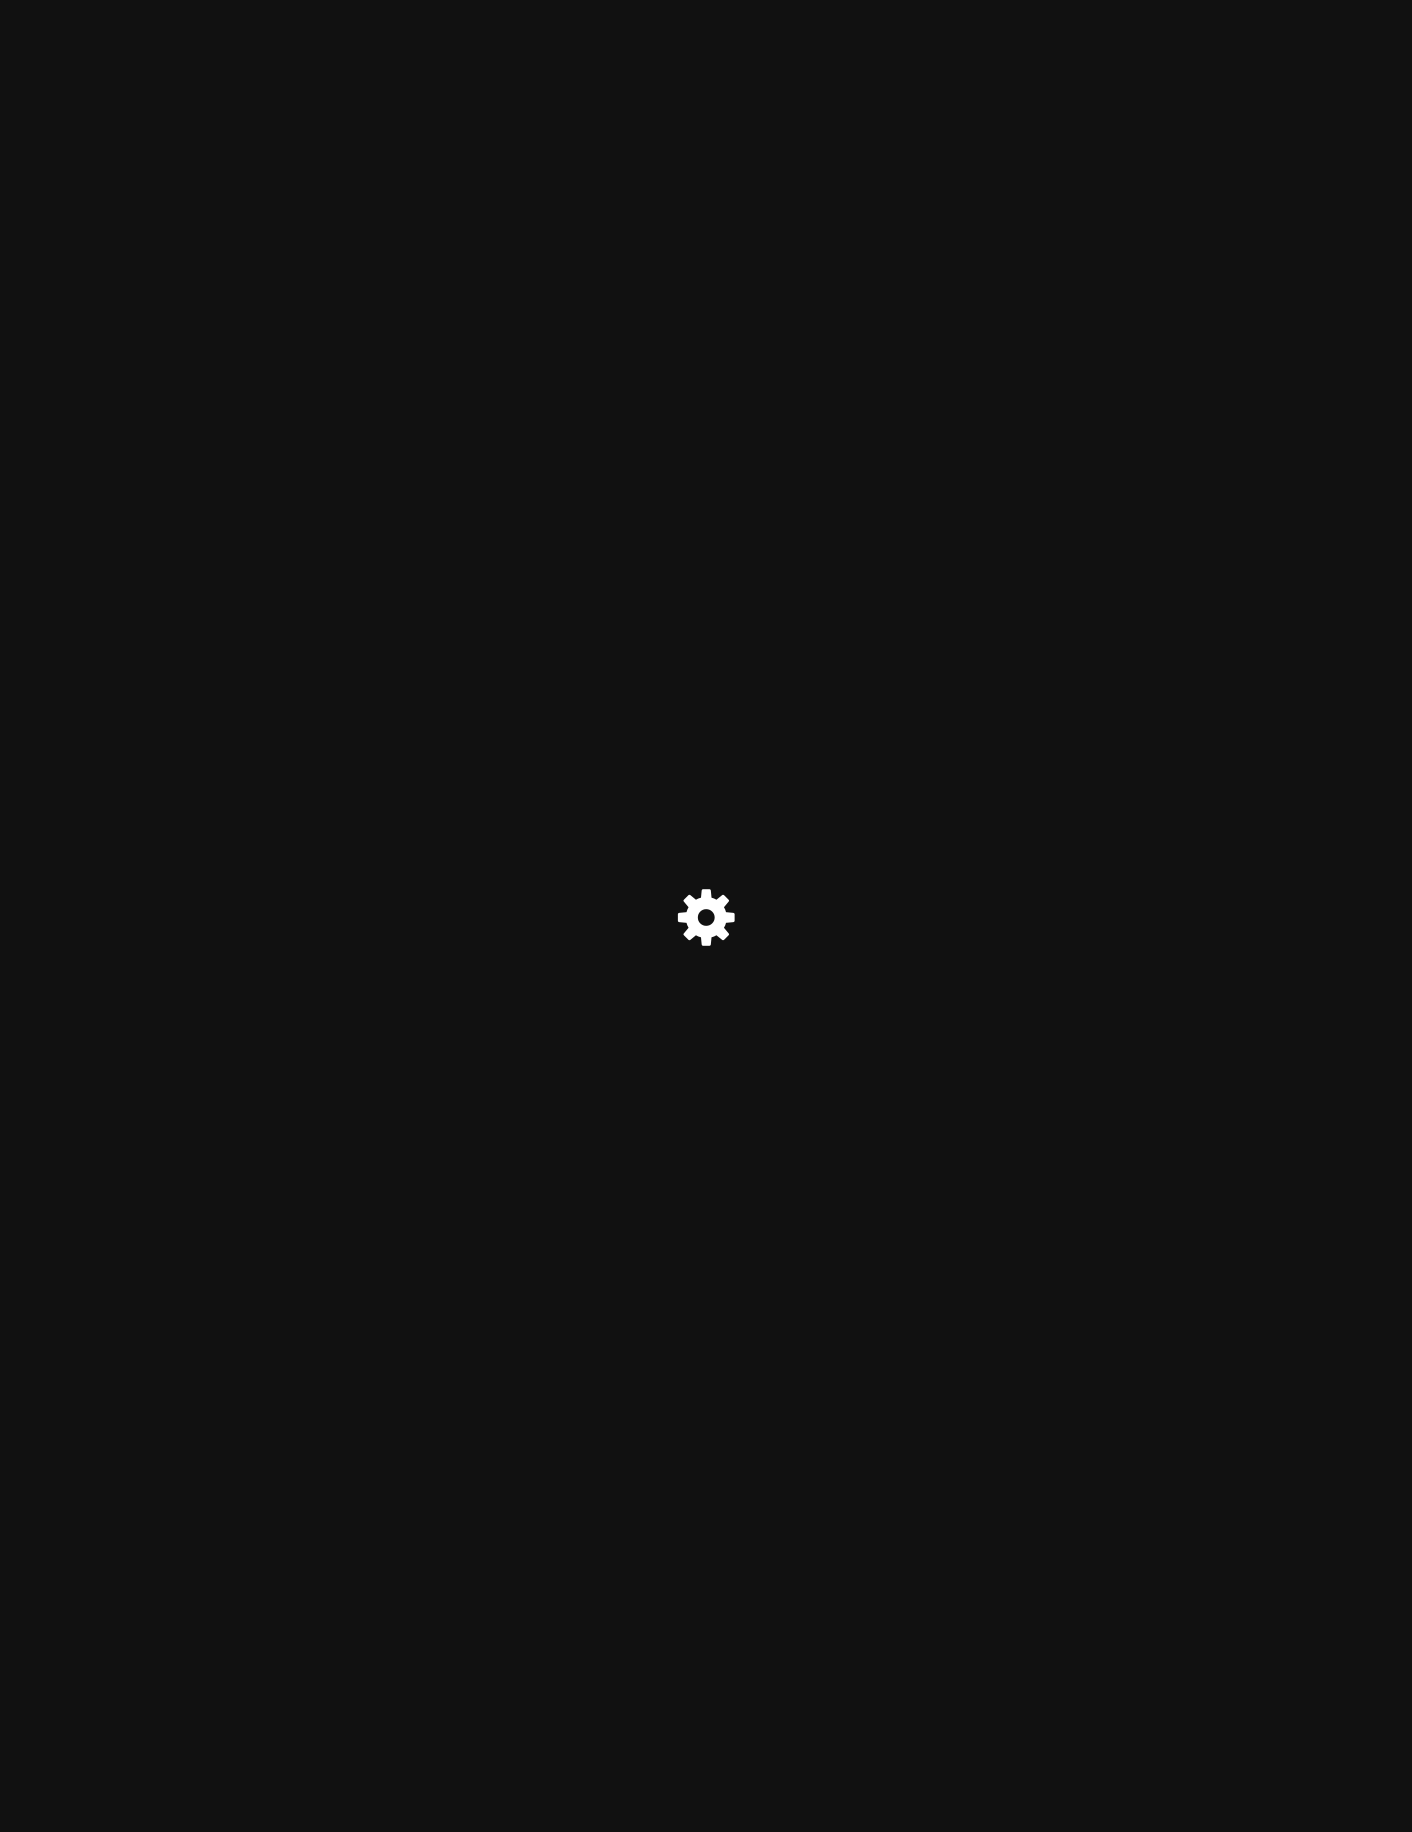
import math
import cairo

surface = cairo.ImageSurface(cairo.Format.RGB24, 1412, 1832)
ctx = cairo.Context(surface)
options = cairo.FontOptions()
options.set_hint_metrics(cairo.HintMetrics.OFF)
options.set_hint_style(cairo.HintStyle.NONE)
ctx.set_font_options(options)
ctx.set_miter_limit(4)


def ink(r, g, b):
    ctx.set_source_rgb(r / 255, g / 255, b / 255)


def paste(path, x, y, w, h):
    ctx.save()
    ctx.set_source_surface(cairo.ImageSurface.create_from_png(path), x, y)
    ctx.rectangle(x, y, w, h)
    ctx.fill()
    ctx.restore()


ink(17, 17, 17)
ctx.paint()
paste("pic1.png", 677, 889, 58, 57)
surface.write_to_png("screenshot.png")
